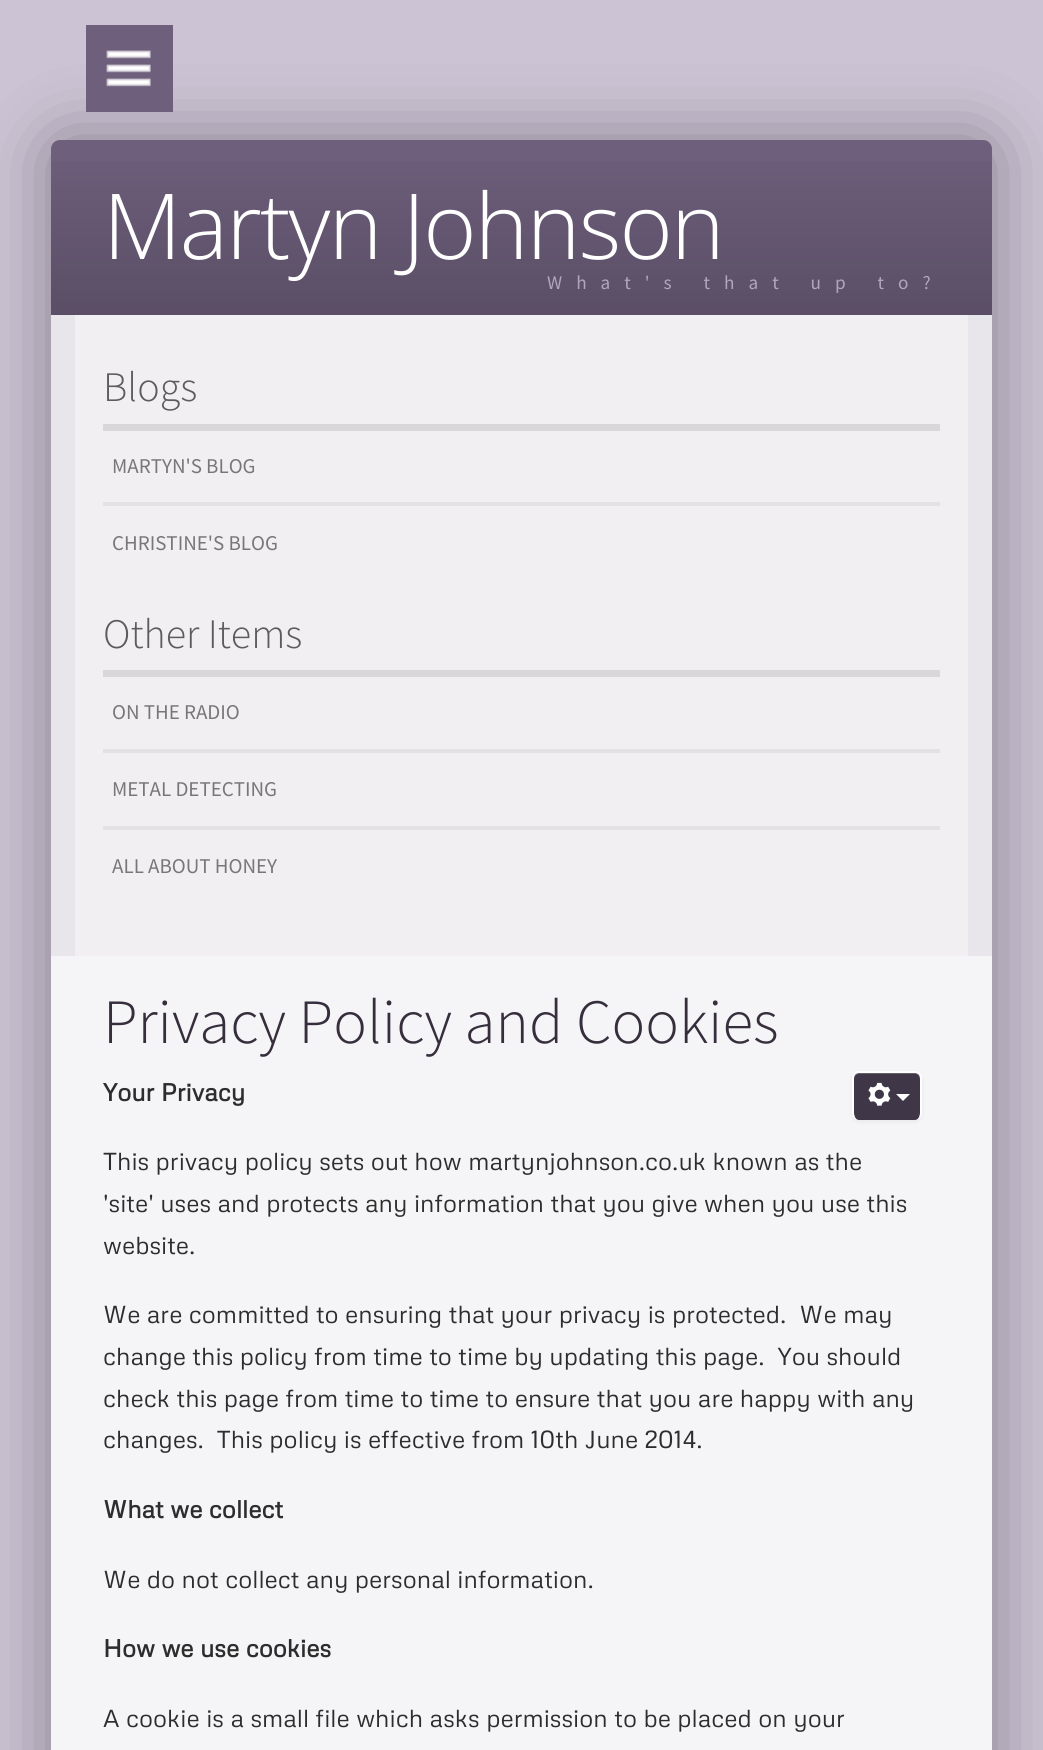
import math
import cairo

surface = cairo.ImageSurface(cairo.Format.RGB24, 1043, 1750)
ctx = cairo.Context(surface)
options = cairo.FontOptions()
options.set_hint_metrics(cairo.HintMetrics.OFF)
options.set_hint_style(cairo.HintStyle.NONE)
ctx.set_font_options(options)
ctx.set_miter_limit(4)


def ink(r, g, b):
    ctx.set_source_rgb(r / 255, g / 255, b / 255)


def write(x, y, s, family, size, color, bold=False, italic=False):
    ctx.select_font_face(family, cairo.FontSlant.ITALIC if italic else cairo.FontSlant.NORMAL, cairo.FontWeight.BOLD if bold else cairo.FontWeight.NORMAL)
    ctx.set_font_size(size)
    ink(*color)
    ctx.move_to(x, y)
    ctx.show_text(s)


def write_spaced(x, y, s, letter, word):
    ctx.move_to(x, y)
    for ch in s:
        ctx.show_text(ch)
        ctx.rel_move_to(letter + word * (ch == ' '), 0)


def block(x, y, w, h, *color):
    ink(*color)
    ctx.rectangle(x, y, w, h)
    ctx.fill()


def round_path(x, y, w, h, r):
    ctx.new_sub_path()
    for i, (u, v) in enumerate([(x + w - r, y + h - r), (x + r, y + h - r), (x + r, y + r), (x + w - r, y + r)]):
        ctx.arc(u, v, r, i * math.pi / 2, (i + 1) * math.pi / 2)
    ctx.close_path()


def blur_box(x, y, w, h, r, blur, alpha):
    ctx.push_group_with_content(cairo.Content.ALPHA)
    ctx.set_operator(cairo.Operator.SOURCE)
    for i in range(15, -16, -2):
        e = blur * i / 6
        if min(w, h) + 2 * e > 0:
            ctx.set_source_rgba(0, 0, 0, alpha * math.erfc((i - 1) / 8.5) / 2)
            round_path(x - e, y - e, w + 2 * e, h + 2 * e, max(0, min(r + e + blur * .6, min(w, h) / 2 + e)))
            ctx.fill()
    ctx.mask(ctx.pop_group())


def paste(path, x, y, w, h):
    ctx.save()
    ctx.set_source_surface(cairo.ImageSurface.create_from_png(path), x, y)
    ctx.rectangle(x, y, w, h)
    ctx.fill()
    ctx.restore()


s1 = dict(family="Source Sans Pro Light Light", size=42, color=(92, 92, 92))
s2 = dict(family="Source Sans Pro", size=21, color=(119, 119, 119))
s3 = dict(family="Source Sans Pro Light Light", size=63, color=(54, 46, 60))
s4 = dict(family="Metrophobic", size=24.5, color=(45, 45, 45), bold=True)
s5 = dict(family="Metrophobic", size=24.5, color=(45, 45, 45))

ink(204, 195, 212)
ctx.paint()
ink(0, 0, 0)
blur_box(51, 140, 941, 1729, 14, 35, 0.35)
ink(232, 230, 235)
round_path(51, 140, 941, 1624, 14)
ctx.fill()
ink(110, 95, 124)
ctx.new_path()
ctx.move_to(60, 140)
ctx.line_to(983, 140)
ctx.curve_to(988, 140, 992, 144, 992, 149)
ctx.line_to(992, 315)
ctx.line_to(51, 315)
ctx.line_to(51, 149)
ctx.curve_to(51, 144, 55, 140, 60, 140)
ctx.close_path()
ctx.fill()
gradient = cairo.LinearGradient(522, 315, 522, 140)
gradient.add_color_stop_rgba(0, 0, 0, 0, 0.18)
gradient.add_color_stop_rgba(1, 0, 0, 0, 0)
ctx.set_source(gradient)
ctx.rectangle(51, 161, 941, 154)
ctx.fill()
ctx.select_font_face("Open Sans Light")
ctx.set_font_size(91)
ink(255, 255, 255)
write_spaced(103, 259, "Martyn Johnson", -1.75, 0)
ctx.select_font_face("Source Sans Pro")
ctx.set_font_size(19.25)
ink(177, 165, 189)
write_spaced(547, 289, "What's that up to?", 14, 0)
block(86, 25, 87, 87, 110, 95, 124)
paste("pic1.png", 106, 50, 45, 37)
block(75, 315, 893, 641, 241, 239, 242)
block(103, 424, 837, 7, 217, 215, 218)
write(103, 401, "Blogs", **s1)
block(103, 502, 837, 4, 227, 225, 227)
write(112, 473, "MARTYN'S BLOG", **s2)
write(112, 550, "CHRISTINE'S BLOG", **s2)
block(103, 670, 837, 7, 217, 215, 218)
write(103, 648, "Other Items", **s1)
block(103, 749, 837, 4, 227, 225, 227)
write(112, 719, "ON THE RADIO", **s2)
block(103, 826, 837, 4, 227, 225, 227)
write(112, 796, "METAL DETECTING", **s2)
write(112, 873, "ALL ABOUT HONEY", **s2)
block(51, 956, 941, 794, 245, 244, 246)
write(103, 1043, "Privacy Policy and Cookies", **s3)
ink(0, 0, 0)
blur_box(852, 1073, 70, 49, 7, 2, 0.05)
ink(63, 54, 71)
ctx.new_path()
ctx.move_to(859, 1073)
ctx.line_to(915, 1073)
ctx.curve_to(918, 1073, 920, 1075, 920, 1078)
ctx.line_to(920, 1113)
ctx.curve_to(920, 1117, 918, 1120, 915, 1120)
ctx.line_to(859, 1120)
ctx.curve_to(856, 1120, 854, 1117, 854, 1113)
ctx.line_to(854, 1078)
ctx.curve_to(854, 1075, 856, 1073, 859, 1073)
ctx.close_path()
ctx.fill()
ctx.set_source_rgba(1, 1, 1, 0.2)
ctx.new_path()
ctx.move_to(859, 1074)
ctx.line_to(916, 1074)
ctx.curve_to(922, 1076, 920, 1088, 920, 1092)
ctx.line_to(920, 1116)
ctx.line_to(920, 1113)
ctx.line_to(920, 1078)
ctx.curve_to(920, 1075, 918, 1073, 915, 1073)
ctx.line_to(859, 1073)
ctx.curve_to(856, 1073, 854, 1075, 854, 1078)
ctx.line_to(854, 1080)
ctx.curve_to(854, 1077, 856, 1074, 859, 1074)
ctx.close_path()
ctx.fill()
ink(255, 255, 255)
ctx.set_fill_rule(cairo.FillRule.EVEN_ODD)
ctx.new_path()
ctx.move_to(859, 1071)
ctx.line_to(915, 1071)
ctx.curve_to(919, 1071, 922, 1074, 922, 1078)
ctx.line_to(922, 1113)
ctx.curve_to(922, 1117, 919, 1120, 915, 1120)
ctx.line_to(859, 1120)
ctx.curve_to(855, 1120, 852, 1117, 852, 1113)
ctx.line_to(852, 1078)
ctx.curve_to(852, 1074, 855, 1071, 859, 1071)
ctx.close_path()
ctx.move_to(859, 1073)
ctx.line_to(915, 1073)
ctx.curve_to(918, 1073, 920, 1075, 920, 1078)
ctx.line_to(920, 1113)
ctx.curve_to(920, 1117, 918, 1120, 915, 1120)
ctx.line_to(859, 1120)
ctx.curve_to(856, 1120, 854, 1117, 854, 1113)
ctx.line_to(854, 1078)
ctx.curve_to(854, 1075, 856, 1073, 859, 1073)
ctx.close_path()
ctx.fill()
paste("pic2.png", 868, 1082, 23, 24)
ctx.set_fill_rule(cairo.FillRule.WINDING)
ctx.new_path()
ctx.move_to(896, 1094)
ctx.line_to(910, 1094)
ctx.line_to(903, 1101)
ctx.close_path()
ctx.fill()
write(103, 1101, "Your Privacy", **s4)
write(103, 1170, "This privacy policy sets out how martynjohnson.co.uk known as the", **s5)
write(103, 1212, "'site' uses and protects any information that you give when you use this", **s5)
write(103, 1254, "website.", **s5)
write(103, 1323, "We are committed to ensuring that your privacy is protected.  We may", **s5)
write(103, 1365, "change this policy from time to time by updating this page.  You should", **s5)
write(103, 1407, "check this page from time to time to ensure that you are happy with any", **s5)
write(103, 1448, "changes.  This policy is effective from 10th June 2014.", **s5)
write(103, 1518, "What we collect", **s4)
write(103, 1588, "We do not collect any personal information.", **s5)
write(103, 1657, "How we use cookies", **s4)
write(103, 1727, "A cookie is a small file which asks permission to be placed on your", **s5)
surface.write_to_png("screenshot.png")
